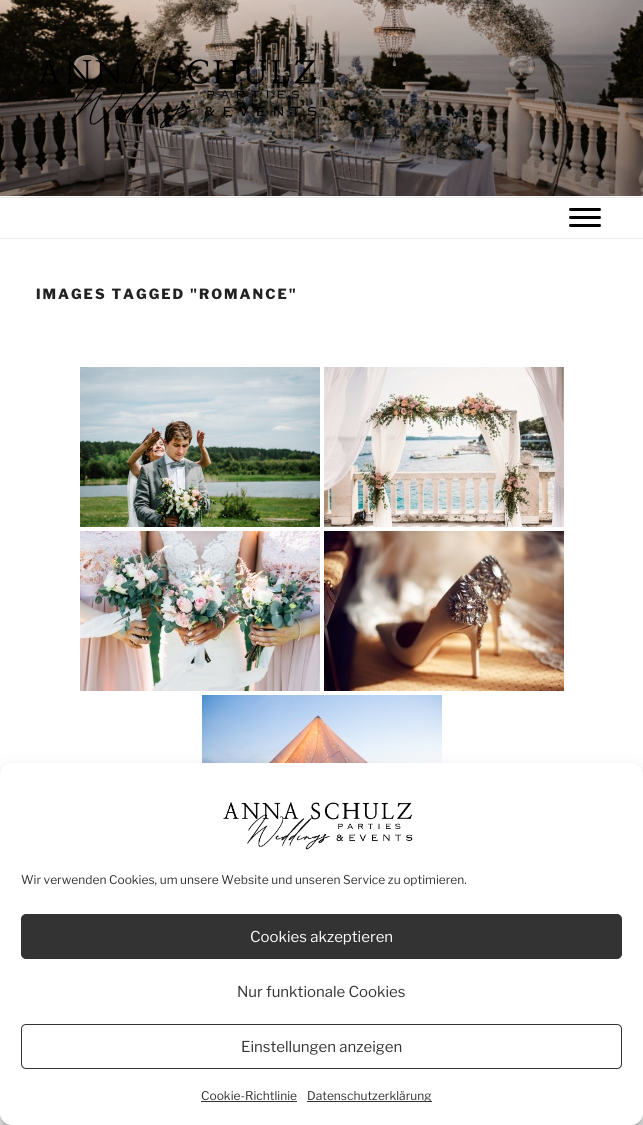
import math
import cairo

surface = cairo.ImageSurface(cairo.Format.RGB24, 643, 1125)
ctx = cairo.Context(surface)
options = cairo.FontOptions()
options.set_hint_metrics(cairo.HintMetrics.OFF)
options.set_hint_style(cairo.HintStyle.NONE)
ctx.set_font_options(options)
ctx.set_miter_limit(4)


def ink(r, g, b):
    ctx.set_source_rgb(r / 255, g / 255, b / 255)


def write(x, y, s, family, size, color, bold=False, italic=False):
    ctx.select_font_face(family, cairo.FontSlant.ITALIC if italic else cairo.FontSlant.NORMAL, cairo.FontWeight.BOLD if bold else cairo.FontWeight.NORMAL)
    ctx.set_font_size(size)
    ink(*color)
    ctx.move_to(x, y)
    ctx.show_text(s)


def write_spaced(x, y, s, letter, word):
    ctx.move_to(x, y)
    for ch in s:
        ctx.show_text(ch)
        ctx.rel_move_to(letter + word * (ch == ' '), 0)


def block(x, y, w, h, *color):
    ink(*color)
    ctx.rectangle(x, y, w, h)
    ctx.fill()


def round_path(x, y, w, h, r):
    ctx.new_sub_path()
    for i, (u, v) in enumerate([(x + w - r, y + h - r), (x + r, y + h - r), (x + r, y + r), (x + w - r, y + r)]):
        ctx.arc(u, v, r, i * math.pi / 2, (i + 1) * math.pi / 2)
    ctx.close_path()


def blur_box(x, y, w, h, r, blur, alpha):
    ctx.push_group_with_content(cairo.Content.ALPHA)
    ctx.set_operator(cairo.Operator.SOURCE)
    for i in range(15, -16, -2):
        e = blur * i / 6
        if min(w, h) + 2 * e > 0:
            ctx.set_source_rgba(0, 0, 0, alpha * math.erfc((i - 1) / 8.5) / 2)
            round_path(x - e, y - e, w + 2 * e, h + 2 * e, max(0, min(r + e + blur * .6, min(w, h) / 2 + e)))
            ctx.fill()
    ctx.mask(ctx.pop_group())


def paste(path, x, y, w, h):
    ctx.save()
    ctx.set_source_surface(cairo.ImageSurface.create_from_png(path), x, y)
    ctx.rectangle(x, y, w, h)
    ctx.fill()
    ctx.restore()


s1 = dict(family="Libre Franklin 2 Thin", size=12, color=(51, 51, 51))
s2 = dict(family="Libre Franklin 2 Thin", size=15, color=(255, 255, 255))
s3 = dict(family="Libre Franklin 2 Thin", size=15, color=(51, 51, 51))

ink(255, 255, 255)
ctx.paint()
block(0, 196, 643, 1, 250, 250, 250)
paste("pic1.png", 0, 0, 643, 196)
paste("pic2.png", 39, 59, 278, 70)
block(0, 197, 643, 1, 238, 238, 238)
block(0, 238, 643, 1, 238, 238, 238)
ink(0, 0, 0)
round_path(569, 208, 32, 3, 1.5)
ctx.fill()
round_path(569, 216, 32, 3, 1.5)
ctx.fill()
round_path(569, 224, 32, 3, 1.5)
ctx.fill()
ctx.select_font_face("Libre Franklin Thin")
ctx.set_font_size(14)
ink(34, 34, 34)
write_spaced(36, 299, "IMAGES TAGGED \"ROMANCE\"", 2, 0)
paste("pic3.png", 80, 367, 240, 160)
paste("pic4.png", 324, 367, 240, 160)
paste("pic5.png", 80, 531, 240, 160)
paste("pic6.png", 324, 531, 240, 160)
paste("pic7.png", 202, 695, 240, 68)
ink(0, 0, 0)
blur_box(0, 769, 643, 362, 12, 3, 0.23)
blur_box(0, 773, 643, 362, 12, 10, 0.19)
ink(255, 255, 255)
round_path(0.5, 763.5, 642, 361, 11.5)
ctx.fill_preserve()
ctx.set_line_width(1)
ctx.stroke()
paste("pic8.png", 223, 802, 190, 48)
write(21, 884, "Wir verwenden Cookies, um unsere Website und unseren Service zu optimieren.", **s1)
round_path(21.5, 914.5, 600, 44, 4.5)
ctx.fill_preserve()
ctx.stroke()
write(250, 942, "Cookies akzeptieren", **s2)
write(237, 997, "Nur funktionale Cookies", **s3)
round_path(21.5, 1024.5, 600, 44, 4.5)
ctx.stroke()
write(241, 1052, "Einstellungen anzeigen", **s3)
write(201, 1100, "Cookie-Richtlinie", **s1)
block(201, 1101, 96, 1, 51, 51, 51)
block(307, 1101, 125, 1, 51, 51, 51)
write(307, 1100, "Datenschutzerklärung", **s1)
surface.write_to_png("screenshot.png")
